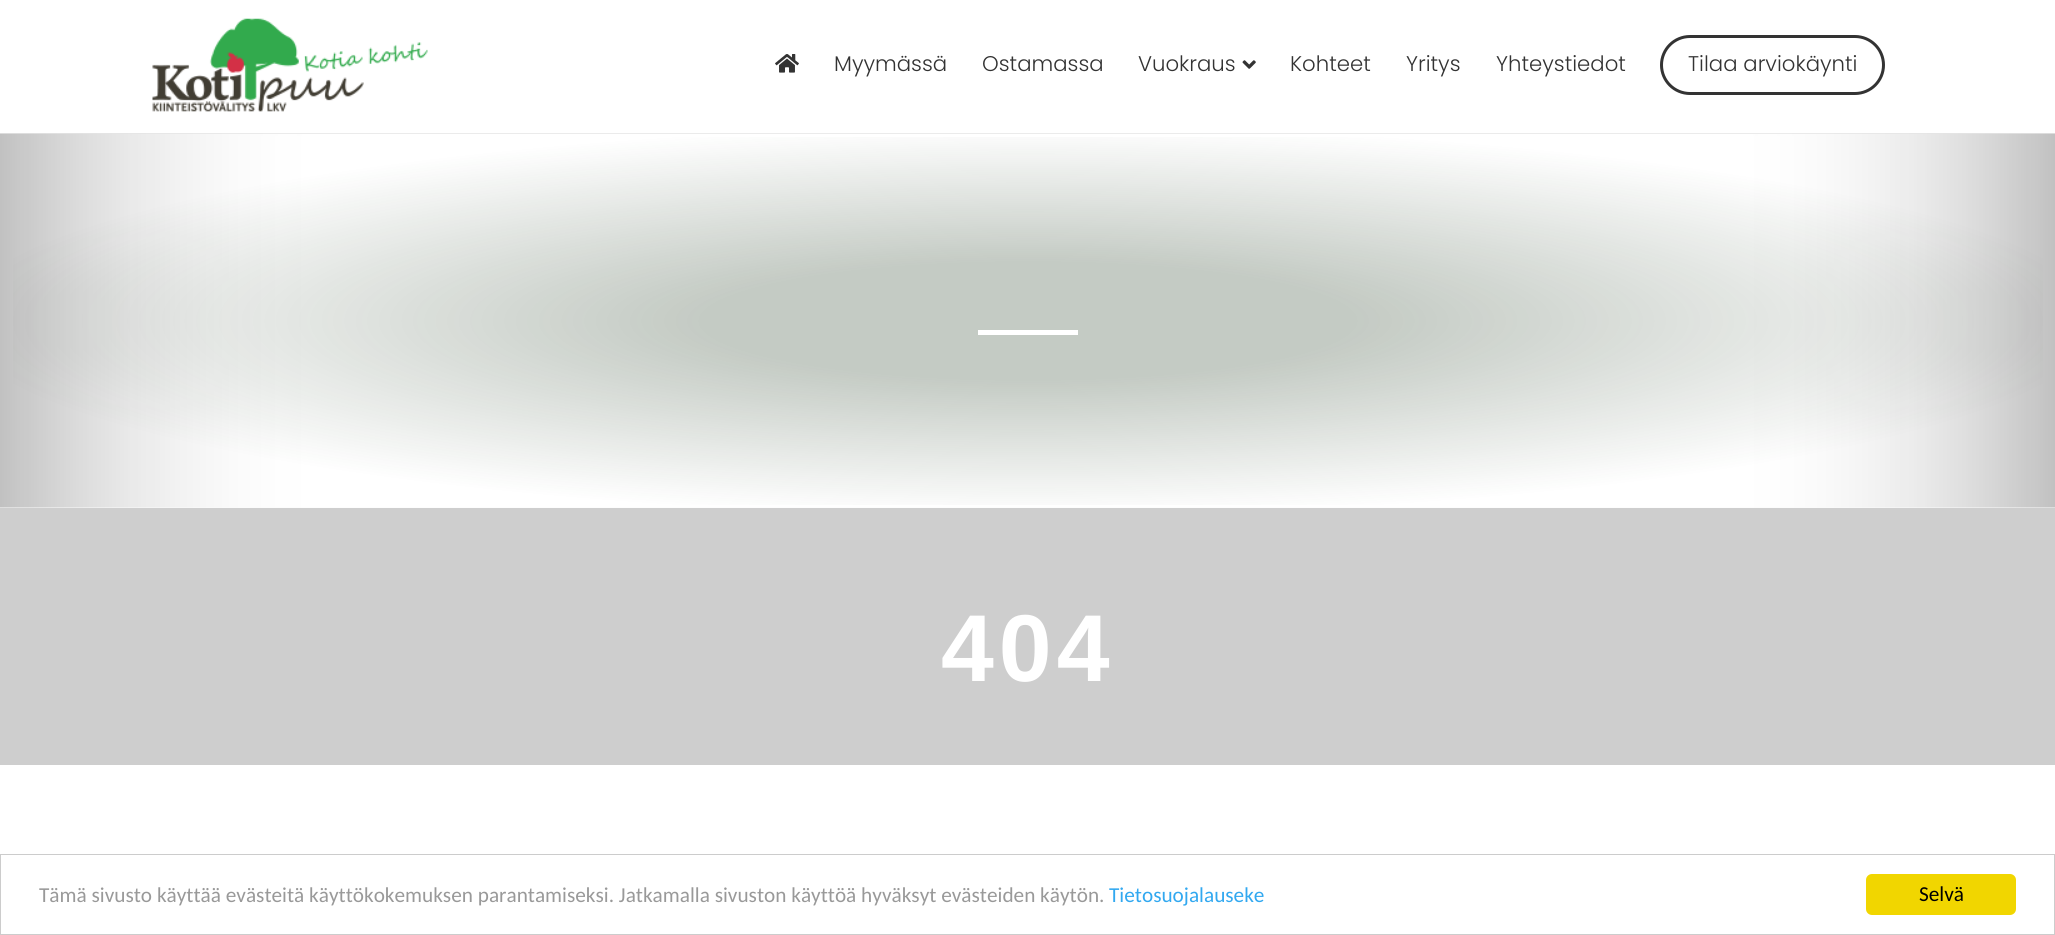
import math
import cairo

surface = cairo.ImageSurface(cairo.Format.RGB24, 2055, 935)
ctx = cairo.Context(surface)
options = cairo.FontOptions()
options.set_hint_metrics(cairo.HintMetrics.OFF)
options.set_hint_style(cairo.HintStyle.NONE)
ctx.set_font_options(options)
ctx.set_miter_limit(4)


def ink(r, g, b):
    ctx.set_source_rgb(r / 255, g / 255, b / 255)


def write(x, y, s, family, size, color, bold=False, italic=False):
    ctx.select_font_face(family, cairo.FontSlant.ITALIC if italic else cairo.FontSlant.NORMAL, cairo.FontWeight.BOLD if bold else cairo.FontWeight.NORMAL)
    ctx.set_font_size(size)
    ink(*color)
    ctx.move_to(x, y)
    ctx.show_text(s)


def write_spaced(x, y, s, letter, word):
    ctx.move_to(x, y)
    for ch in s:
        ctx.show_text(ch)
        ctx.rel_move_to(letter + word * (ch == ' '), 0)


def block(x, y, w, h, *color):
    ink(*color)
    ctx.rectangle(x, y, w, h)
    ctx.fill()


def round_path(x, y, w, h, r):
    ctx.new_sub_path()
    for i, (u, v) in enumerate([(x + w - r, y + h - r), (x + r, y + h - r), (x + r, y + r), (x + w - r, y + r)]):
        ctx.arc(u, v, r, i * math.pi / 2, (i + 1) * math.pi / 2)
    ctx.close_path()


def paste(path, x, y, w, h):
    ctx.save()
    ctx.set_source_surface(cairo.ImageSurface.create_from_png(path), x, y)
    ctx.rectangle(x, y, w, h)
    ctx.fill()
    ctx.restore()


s1 = dict(family="Poppins Light", size=21.25, color=(51, 51, 51))
s2 = dict(family="Carlito", size=21.25, color=(153, 153, 153))
s3 = dict(family="Carlito", size=21.25, color=(49, 168, 240))
s4 = dict(family="Carlito", size=21.25, color=(0, 0, 0))

ink(250, 250, 250)
ctx.paint()
block(0, 0, 2055, 133, 255, 255, 255)
block(0, 133, 2055, 1, 228, 228, 228)
paste("pic1.png", 152, 18, 276, 94)
paste("pic2.png", 775, 54, 24, 19)
write(834, 71, "Myymässä", **s1)
write(982, 71, "Ostamassa", **s1)
write(1138, 71, "Vuokraus", **s1)
paste("pic3.png", 1242, 60, 14, 9)
write(1290, 71, "Kohteet", **s1)
write(1406, 71, "Yritys", **s1)
write(1496, 71, "Yhteystiedot", **s1)
round_path(1661.5, 36.5, 222, 57, 28.5)
ctx.set_line_width(3)
ctx.stroke()
write(1688, 71, "Tilaa arviokäynti", **s1)
paste("pic4.png", 0, 133, 2055, 375)
gradient = cairo.RadialGradient(0, 0, 0, 0, 0, 1)
gradient.set_matrix(cairo.Matrix(1 / 1453, 0, 0, 1 / 264, -1 * 1028 / 1453, -1 * 321 / 264))
gradient.add_color_stop_rgba(0.22, 0.106, 0.208, 0.102, 0.26)
gradient.add_color_stop_rgba(0.74, 0.106, 0.208, 0.102, 0)
ctx.set_source(gradient)
ctx.rectangle(13, 137, 2030, 368)
ctx.fill()
block(978, 330, 100, 5, 255, 255, 255)
block(0, 765, 2055, 89, 255, 255, 255)
block(0, 508, 2055, 257, 206, 206, 206)
ctx.select_font_face("Liberation Sans", cairo.FontSlant.NORMAL, cairo.FontWeight.BOLD)
ctx.set_font_size(95)
ink(255, 255, 255)
write_spaced(941, 681, "404", 5, 0)
ctx.rectangle(0.5, 854.5, 2054, 80)
ctx.fill_preserve()
ink(204, 204, 204)
ctx.set_line_width(1)
ctx.stroke()
write(39, 902, "Tämä sivusto käyttää evästeitä käyttökokemuksen parantamiseksi. Jatkamalla sivuston käyttöä hyväksyt evästeiden käytön.", **s2)
write(1109, 902, "Tietosuojalauseke", **s3)
ink(241, 214, 0)
round_path(1866, 874, 150, 41, 6)
ctx.fill()
write(1919, 901, "Selvä", **s4)
surface.write_to_png("screenshot.png")
